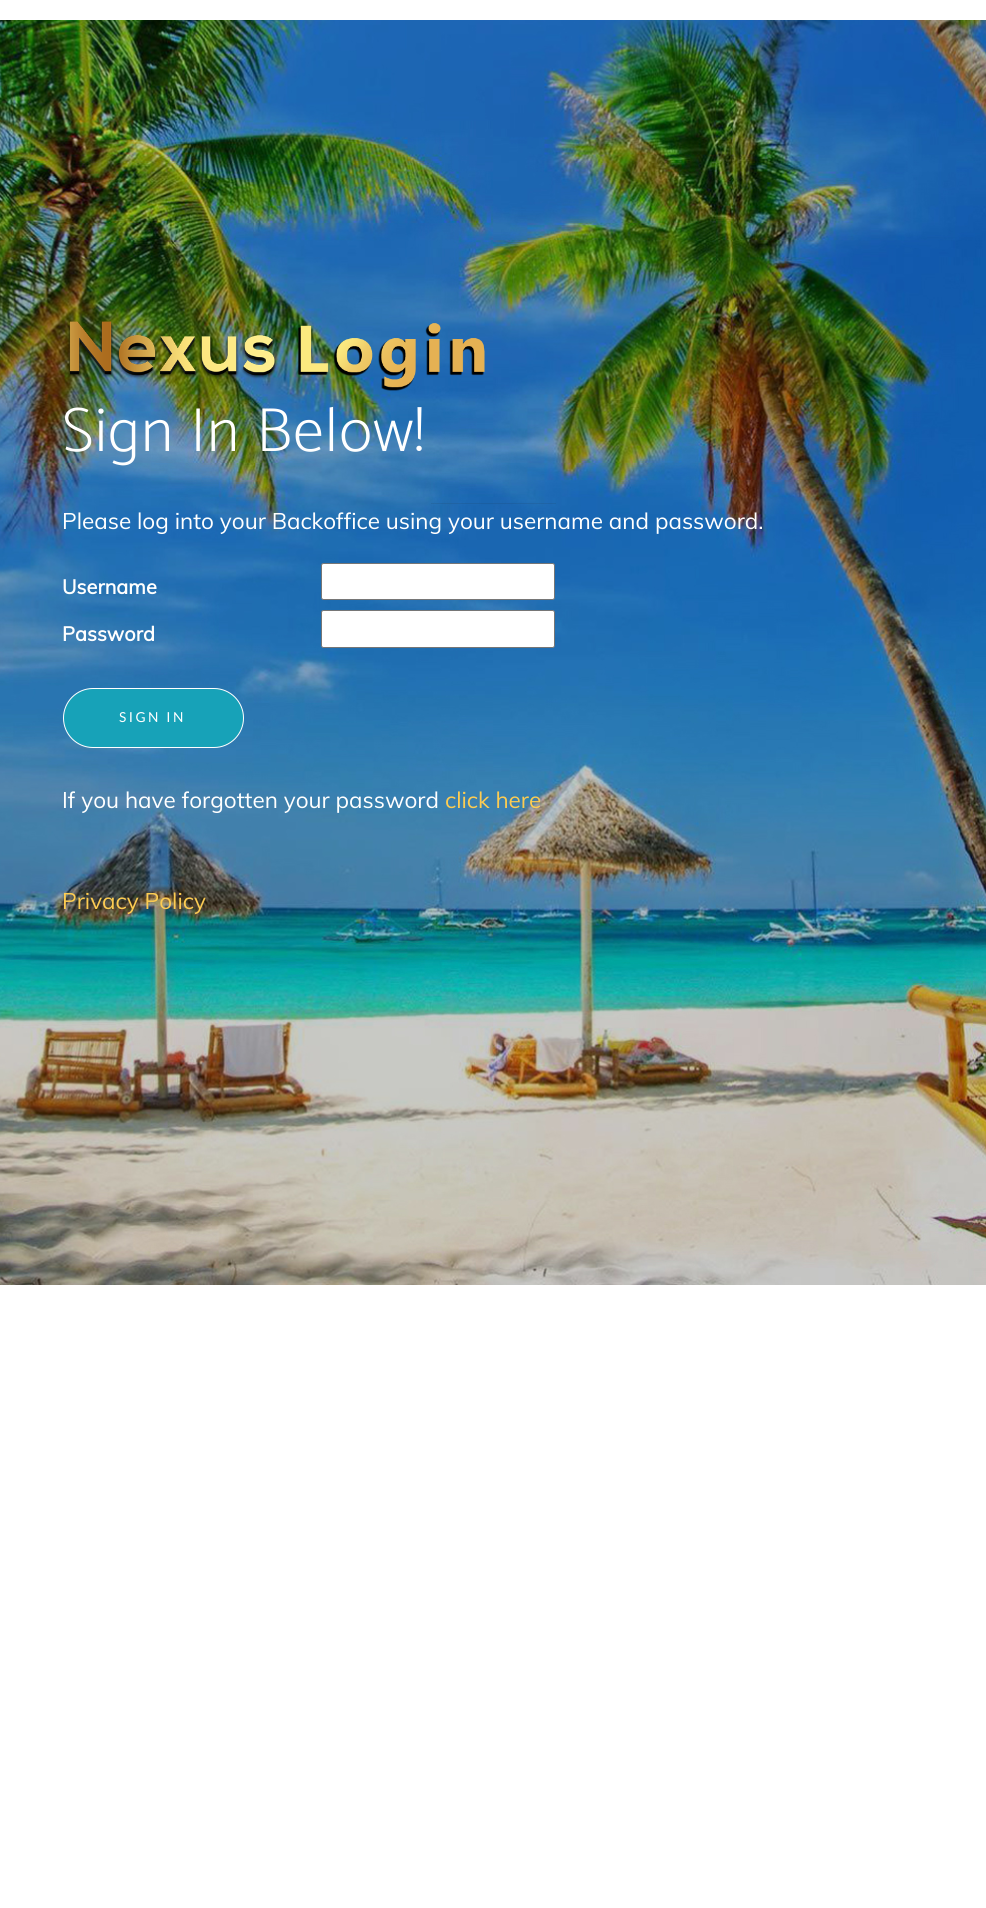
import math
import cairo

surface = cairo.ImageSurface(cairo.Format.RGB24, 986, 1908)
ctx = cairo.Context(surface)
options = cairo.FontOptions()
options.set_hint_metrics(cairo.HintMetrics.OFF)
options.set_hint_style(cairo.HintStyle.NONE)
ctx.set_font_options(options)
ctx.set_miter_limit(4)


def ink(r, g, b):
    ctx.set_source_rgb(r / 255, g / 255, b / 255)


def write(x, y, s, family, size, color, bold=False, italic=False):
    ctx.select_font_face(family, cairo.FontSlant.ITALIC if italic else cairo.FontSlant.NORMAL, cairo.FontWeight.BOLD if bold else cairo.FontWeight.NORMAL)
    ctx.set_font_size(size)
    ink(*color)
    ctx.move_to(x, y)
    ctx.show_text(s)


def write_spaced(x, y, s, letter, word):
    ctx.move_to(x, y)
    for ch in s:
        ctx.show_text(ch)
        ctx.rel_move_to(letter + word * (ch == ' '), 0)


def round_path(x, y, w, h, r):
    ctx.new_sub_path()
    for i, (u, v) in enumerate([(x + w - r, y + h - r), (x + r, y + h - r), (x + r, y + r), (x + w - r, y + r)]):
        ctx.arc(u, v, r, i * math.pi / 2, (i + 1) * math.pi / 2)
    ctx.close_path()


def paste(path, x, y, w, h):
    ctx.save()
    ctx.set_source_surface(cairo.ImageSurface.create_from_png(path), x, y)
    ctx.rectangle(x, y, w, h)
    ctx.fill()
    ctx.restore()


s1 = dict(family="Muli", size=22.5, color=(255, 255, 255))
s2 = dict(family="Muli", size=20, color=(255, 255, 255), bold=True)
s3 = dict(family="Muli", size=22.5, color=(253, 204, 82))

ink(255, 255, 255)
ctx.paint()
paste("pic1.png", 0, 20, 986, 1265)
paste("pic2.png", 67, 321, 418, 70)
ctx.select_font_face("Catamaran ExtraLight")
ctx.set_font_size(62.5)
ink(255, 255, 255)
write_spaced(62, 451, "Sign In Below!", 1.25, 0)
ctx.set_source_rgba(0.133, 0.133, 0.133, 0.1)
ctx.rectangle(431, 503, 125, 1)
ctx.fill()
write(62, 529, "Please log into your Backoffice using your username and password.", **s1)
write(62, 594, "Username", **s2)
round_path(321.5, 563.5, 233, 36, 2)
ctx.fill_preserve()
ink(118, 118, 118)
ctx.set_line_width(1)
ctx.stroke()
write(62, 641, "Password", **s2)
round_path(321.5, 610.5, 233, 37, 2)
ctx.fill_preserve()
ink(118, 118, 118)
ctx.stroke()
ink(23, 162, 184)
round_path(63.5, 688.5, 180, 59, 29.5)
ctx.fill_preserve()
ink(255, 255, 255)
ctx.stroke()
ctx.select_font_face("Lato")
ctx.set_font_size(13.75)
write_spaced(119, 722, "SIGN IN", 2.5, 0)
write(62, 808, "If you have forgotten your password", **s1)
write(445, 808, "click here", **s3)
write(62, 909, "Privacy Policy", **s3)
surface.write_to_png("screenshot.png")
